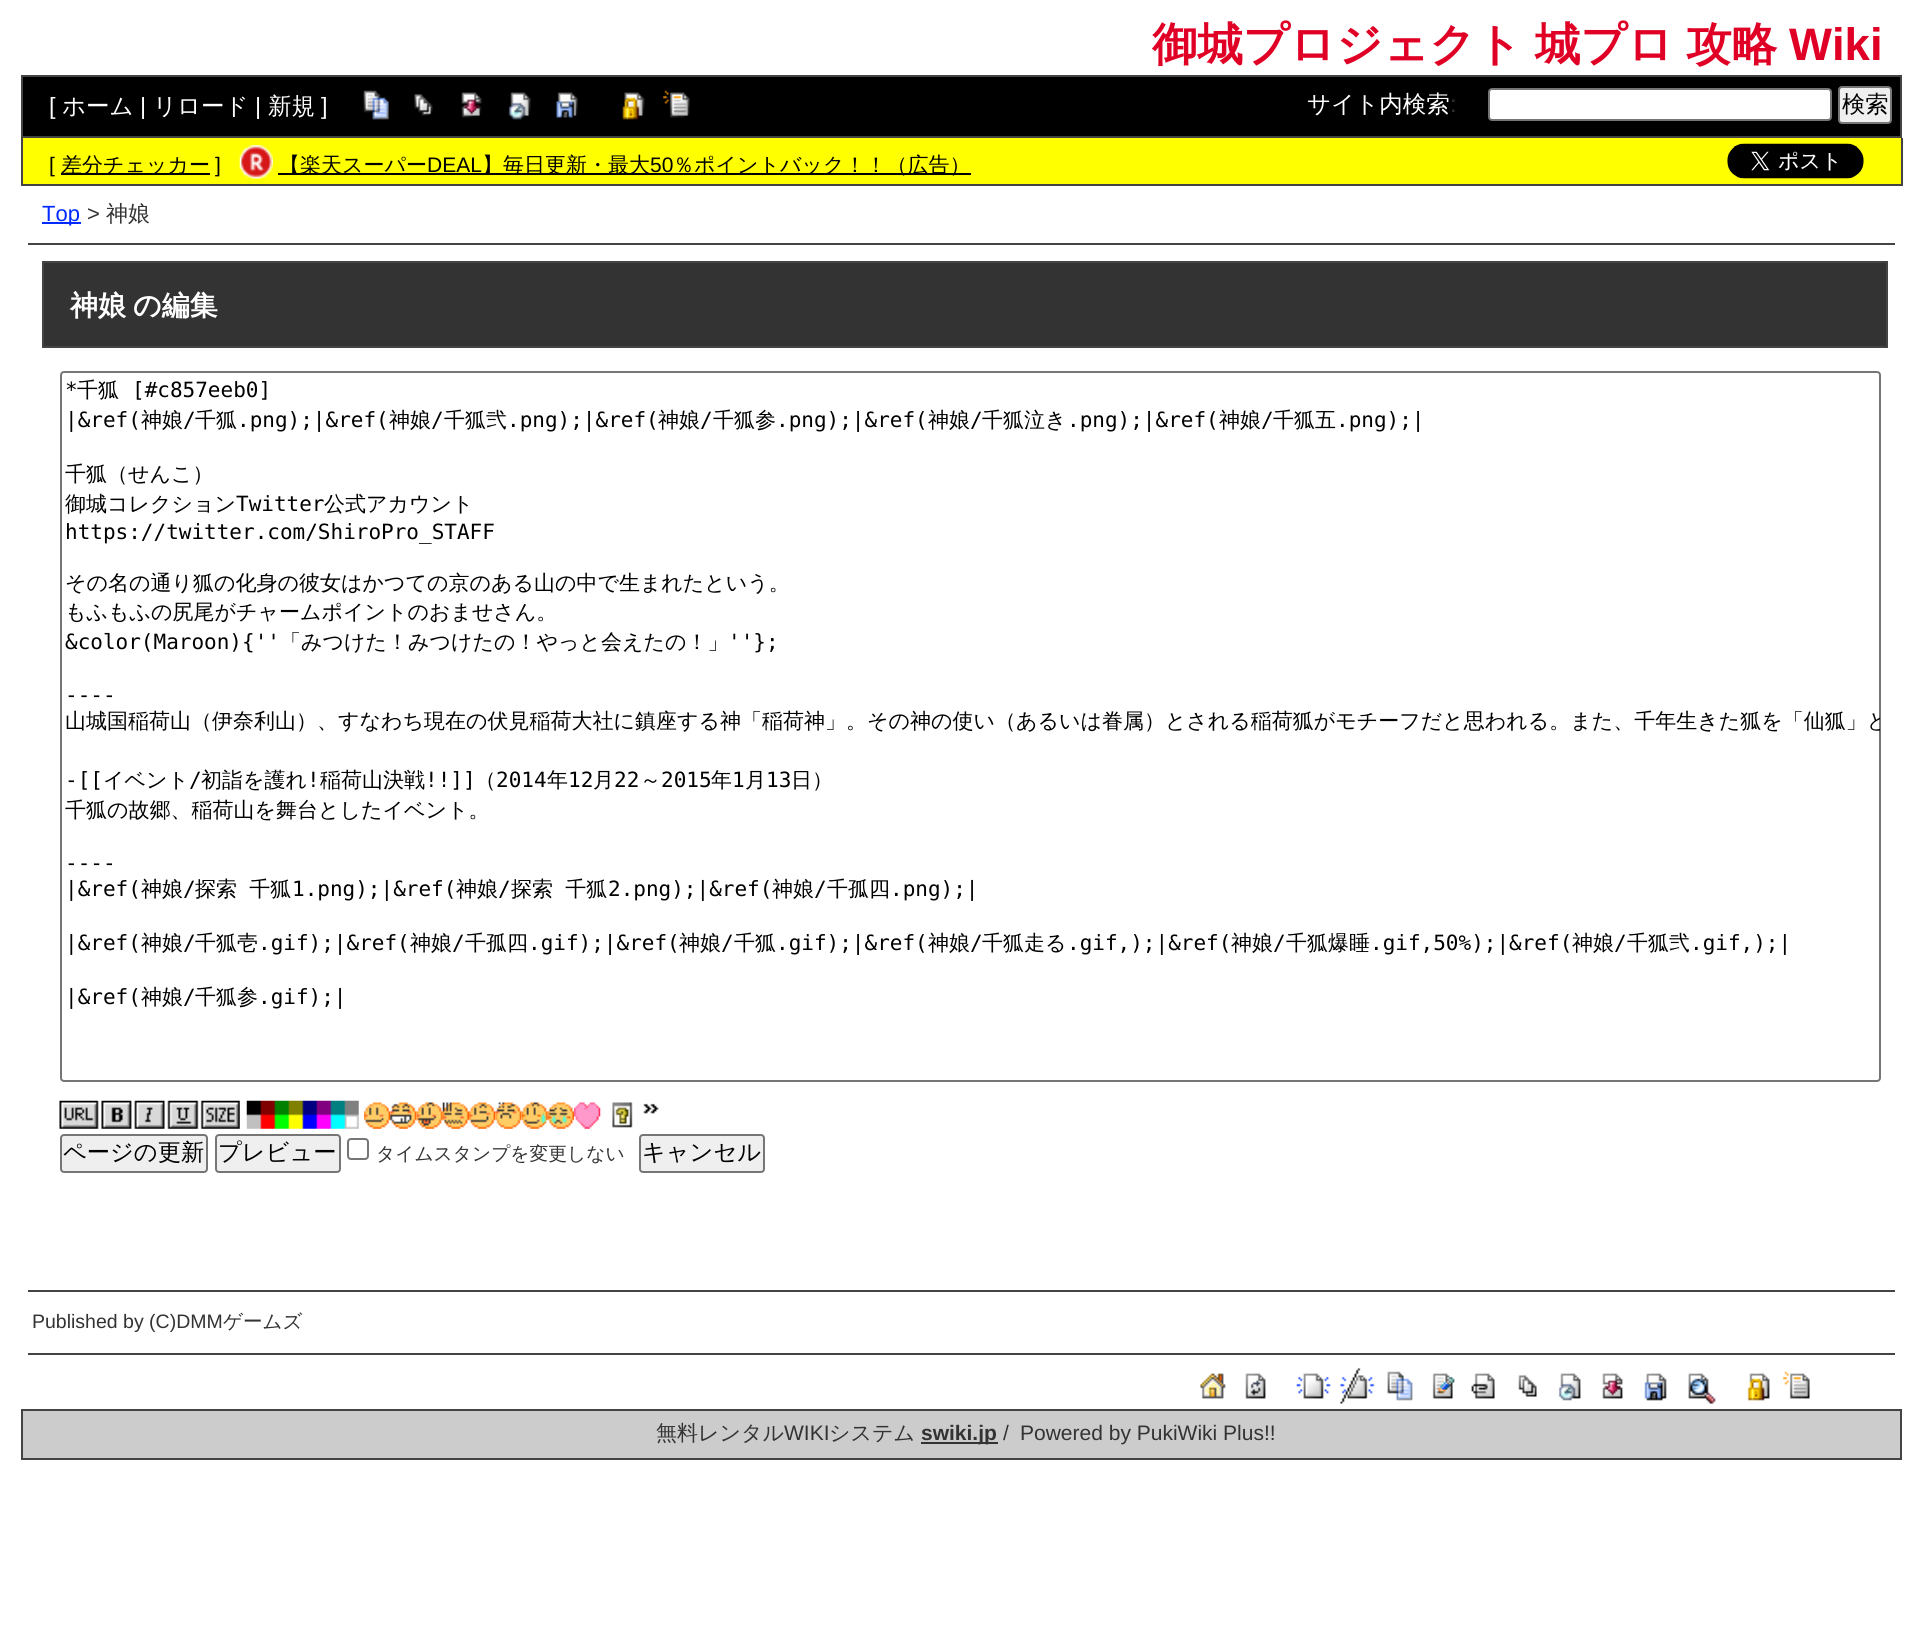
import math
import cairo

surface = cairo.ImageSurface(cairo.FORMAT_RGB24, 1922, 1647)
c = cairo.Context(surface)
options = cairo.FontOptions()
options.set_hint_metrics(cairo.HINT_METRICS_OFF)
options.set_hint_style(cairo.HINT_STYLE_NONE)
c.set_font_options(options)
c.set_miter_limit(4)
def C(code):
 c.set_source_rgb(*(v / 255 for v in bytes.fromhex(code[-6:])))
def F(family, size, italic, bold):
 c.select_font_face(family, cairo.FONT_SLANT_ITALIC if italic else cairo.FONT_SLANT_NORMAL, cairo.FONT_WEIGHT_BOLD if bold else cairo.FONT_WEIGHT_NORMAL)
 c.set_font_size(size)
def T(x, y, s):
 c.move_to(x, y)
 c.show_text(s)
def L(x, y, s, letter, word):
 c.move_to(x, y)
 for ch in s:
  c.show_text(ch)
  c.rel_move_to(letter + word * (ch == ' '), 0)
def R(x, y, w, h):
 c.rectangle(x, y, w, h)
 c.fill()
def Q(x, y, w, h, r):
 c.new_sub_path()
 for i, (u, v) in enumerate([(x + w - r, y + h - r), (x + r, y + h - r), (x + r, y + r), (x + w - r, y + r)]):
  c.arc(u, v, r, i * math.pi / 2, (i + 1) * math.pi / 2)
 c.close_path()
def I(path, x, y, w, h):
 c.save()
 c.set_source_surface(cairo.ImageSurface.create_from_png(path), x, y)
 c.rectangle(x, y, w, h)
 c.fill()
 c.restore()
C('ffffff')
c.paint()
F('WenQuanYi Zen Hei',45.5,0,1)
C('e00025')
L(1152,60,'御城プロジェクト 城プロ 攻略',0,-1)
F('Liberation Sans',45.5,0,1)
T(1789,60,'Wiki')
C('000000')
c.rectangle(22,76,1879,61)
c.fill_preserve()
C('444444')
c.stroke()
F('Liberation Sans',23.5,0,0)
C('ffffff')
T(49,114,'[')
F('WenQuanYi Zen Hei Medium',23.5,0,0)
T(62,114,'ホーム')
F('Liberation Sans',23.5,0,0)
T(140,114,'|')
F('WenQuanYi Zen Hei Medium',23.5,0,0)
T(153,114,'リロード')
F('Liberation Sans',23.5,0,0)
T(255,114,'|')
F('WenQuanYi Zen Hei Medium',23.5,0,0)
T(268,114,'新規')
F('Liberation Sans',23.5,0,0)
T(321,114,']')
I('1.png',363,90,26,30)
I('2.png',414,94,19,22)
I('3.png',461,92,21,26)
I('4.png',508,92,23,28)
I('5.png',556,92,22,26)
I('6.png',622,92,23,28)
I('7.png',663,90,27,28)
F('WenQuanYi Zen Hei Medium',23.5,0,0)
T(1307,112,'サイト内検索')
F('Liberation Sans',23.5,0,0)
C('333333')
T(1450,112,':')
C('ffffff')
Q(1489,89,342,31,3)
c.fill_preserve()
C('767676')
c.stroke()
C('efefef')
Q(1839,87,52,36,3)
c.fill_preserve()
C('767676')
c.stroke()
F('WenQuanYi Zen Hei Medium',23.25,0,0)
C('000000')
T(1842,112,'検索')
C('ffff00')
R(23,138,1878,46)
C('444444')
R(1901,138,2,48)
R(21,184,1881,2)
R(21,138,2,48)
F('Liberation Sans',21,0,0)
C('000000')
T(49,172,'[')
R(61,173,149,2)
F('WenQuanYi Zen Hei Medium',21,0,0)
T(61,172,'差分チェッカー')
F('Liberation Sans',21,0,0)
T(215,172,']')
I('8.png',239,145,34,34)
R(278,173,693,2)
F('WenQuanYi Zen Hei Medium',21,0,0)
T(279,172,'【楽天スーパー')
F('Liberation Sans',21,0,0)
T(427,172,'DEAL')
F('WenQuanYi Zen Hei Medium',21,0,0)
T(482,172,'】毎日更新・最大')
F('Liberation Sans',21,0,0)
T(650,172,'50')
F('WenQuanYi Zen Hei Medium',21,0,0)
T(673,172,'％ポイントバック！！（広告）')
I('9.png',1727,143,137,36)
C('002aff')
R(42,222,39,2)
F('Liberation Sans',22,0,0)
T(42,221,'Top')
C('333333')
T(87,221,'>')
F('WenQuanYi Zen Hei Medium',22,0,0)
T(106,221,'神娘')
C('444444')
R(28,243,1867,2)
C('333333')
c.rectangle(43,262,1844,85)
c.fill_preserve()
C('444444')
c.stroke()
F('WenQuanYi Zen Hei',28,0,1)
C('ffffff')
T(70,315,'神娘')
T(133,315,'の編集')
Q(61,372,1819,709,3)
C('767676')
c.stroke()
F('DejaVu Sans Mono',21,0,0)
C('000000')
T(65,397,'*')
F('WenQuanYi Zen Hei Medium',21,0,0)
T(77,397,'千狐')
F('DejaVu Sans Mono',21,0,0)
T(132,397,'[#c857eeb0]')
T(65,427,'|&ref(')
F('WenQuanYi Zen Hei Medium',21,0,0)
T(141,427,'神娘')
F('DejaVu Sans Mono',21,0,0)
T(183,427,'/')
F('WenQuanYi Zen Hei Medium',21,0,0)
T(195,427,'千狐')
F('DejaVu Sans Mono',21,0,0)
T(237,427,'.png);|&ref(')
F('WenQuanYi Zen Hei Medium',21,0,0)
T(389,427,'神娘')
F('DejaVu Sans Mono',21,0,0)
T(431,427,'/')
F('WenQuanYi Zen Hei Medium',21,0,0)
T(444,427,'千狐弐')
F('DejaVu Sans Mono',21,0,0)
T(507,427,'.png);|&ref(')
F('WenQuanYi Zen Hei Medium',21,0,0)
T(658,427,'神娘')
F('DejaVu Sans Mono',21,0,0)
T(700,427,'/')
F('WenQuanYi Zen Hei Medium',21,0,0)
T(713,427,'千狐参')
F('DejaVu Sans Mono',21,0,0)
T(776,427,'.png);|&ref(')
F('WenQuanYi Zen Hei Medium',21,0,0)
T(928,427,'神娘')
F('DejaVu Sans Mono',21,0,0)
T(970,427,'/')
F('WenQuanYi Zen Hei Medium',21,0,0)
T(982,427,'千狐泣き')
F('DejaVu Sans Mono',21,0,0)
T(1067,427,'.png);|&ref(')
F('WenQuanYi Zen Hei Medium',21,0,0)
T(1219,427,'神娘')
F('DejaVu Sans Mono',21,0,0)
T(1261,427,'/')
F('WenQuanYi Zen Hei Medium',21,0,0)
T(1273,427,'千狐五')
F('DejaVu Sans Mono',21,0,0)
T(1336,427,'.png);|')
F('WenQuanYi Zen Hei Medium',21,0,0)
T(65,481,'千狐（せんこ）')
T(65,511,'御城コレクション')
F('DejaVu Sans Mono',21,0,0)
T(236,511,'Twitter')
F('WenQuanYi Zen Hei Medium',21,0,0)
T(324,511,'公式アカウント')
F('DejaVu Sans Mono',21,0,0)
T(65,539,'https://twitter.com/ShiroPro_STAFF')
F('WenQuanYi Zen Hei Medium',21,0,0)
T(65,590,'その名の通り狐の化身の彼女はかつての京のある山の中で生まれたという。')
T(65,619,'もふもふの尻尾がチャームポイントのおませさん。')
F('DejaVu Sans Mono',21,0,0)
T(65,649,'&color(Maroon){\'\'')
F('WenQuanYi Zen Hei Medium',21,0,0)
T(280,649,'「みつけた！みつけたの！やっと会えたの！」')
F('DejaVu Sans Mono',21,0,0)
T(728,649,'\'\'};')
T(65,702,'----')
c.save()
c.rectangle(61,373,1819,707)
c.clip()
F('WenQuanYi Zen Hei Medium',21,0,0)
T(65,728,'山城国稲荷山（伊奈利山）、すなわち現在の伏見稲荷大社に鎮座する神「稲荷神」。その神の使い（あるいは眷属）とされる稲荷狐がモチーフだと思われる。また、千年生きた狐を「仙狐」と')
c.restore()
T(65,787,'-[[')
F('WenQuanYi Zen Hei Medium',21,0,0)
T(103,787,'イベント')
F('DejaVu Sans Mono',21,0,0)
T(189,787,'/')
F('WenQuanYi Zen Hei Medium',21,0,0)
T(201,787,'初詣を護れ')
F('DejaVu Sans Mono',21,0,0)
T(307,787,'!')
F('WenQuanYi Zen Hei Medium',21,0,0)
T(320,787,'稲荷山決戦')
F('DejaVu Sans Mono',21,0,0)
T(425,787,'!!]]')
F('WenQuanYi Zen Hei Medium',21,0,0)
T(475,787,'（')
F('DejaVu Sans Mono',21,0,0)
T(496,787,'2014')
F('WenQuanYi Zen Hei Medium',21,0,0)
T(547,787,'年')
F('DejaVu Sans Mono',21,0,0)
T(568,787,'12')
F('WenQuanYi Zen Hei Medium',21,0,0)
T(593,787,'月')
F('DejaVu Sans Mono',21,0,0)
T(614,787,'22')
F('WenQuanYi Zen Hei Medium',21,0,0)
T(640,787,'～')
F('DejaVu Sans Mono',21,0,0)
T(661,787,'2015')
F('WenQuanYi Zen Hei Medium',21,0,0)
T(711,787,'年')
F('DejaVu Sans Mono',21,0,0)
T(732,787,'1')
F('WenQuanYi Zen Hei Medium',21,0,0)
T(745,787,'月')
F('DejaVu Sans Mono',21,0,0)
T(766,787,'13')
F('WenQuanYi Zen Hei Medium',21,0,0)
T(791,787,'日）')
T(65,817,'千狐の故郷、稲荷山を舞台としたイベント。')
F('DejaVu Sans Mono',21,0,0)
T(65,870,'----')
T(65,896,'|&ref(')
F('WenQuanYi Zen Hei Medium',21,0,0)
T(141,896,'神娘')
F('DejaVu Sans Mono',21,0,0)
T(183,896,'/')
F('WenQuanYi Zen Hei Medium',21,0,0)
L(195,896,'探索 千狐',0,6)
F('DejaVu Sans Mono',21,0,0)
T(292,896,'1.png);|&ref(')
F('WenQuanYi Zen Hei Medium',21,0,0)
T(456,896,'神娘')
F('DejaVu Sans Mono',21,0,0)
T(498,896,'/')
F('WenQuanYi Zen Hei Medium',21,0,0)
L(511,896,'探索 千狐',0,6)
F('DejaVu Sans Mono',21,0,0)
T(608,896,'2.png);|&ref(')
F('WenQuanYi Zen Hei Medium',21,0,0)
T(772,896,'神娘')
F('DejaVu Sans Mono',21,0,0)
T(814,896,'/')
F('WenQuanYi Zen Hei Medium',21,0,0)
T(827,896,'千孤四')
F('DejaVu Sans Mono',21,0,0)
T(890,896,'.png);|')
T(65,950,'|&ref(')
F('WenQuanYi Zen Hei Medium',21,0,0)
T(141,950,'神娘')
F('DejaVu Sans Mono',21,0,0)
T(183,950,'/')
F('WenQuanYi Zen Hei Medium',21,0,0)
T(195,950,'千狐壱')
F('DejaVu Sans Mono',21,0,0)
T(258,950,'.gif);|&ref(')
F('WenQuanYi Zen Hei Medium',21,0,0)
T(410,950,'神娘')
F('DejaVu Sans Mono',21,0,0)
T(452,950,'/')
F('WenQuanYi Zen Hei Medium',21,0,0)
T(465,950,'千孤四')
F('DejaVu Sans Mono',21,0,0)
T(528,950,'.gif);|&ref(')
F('WenQuanYi Zen Hei Medium',21,0,0)
T(679,950,'神娘')
F('DejaVu Sans Mono',21,0,0)
T(721,950,'/')
F('WenQuanYi Zen Hei Medium',21,0,0)
T(734,950,'千狐')
F('DejaVu Sans Mono',21,0,0)
T(776,950,'.gif);|&ref(')
F('WenQuanYi Zen Hei Medium',21,0,0)
T(928,950,'神娘')
F('DejaVu Sans Mono',21,0,0)
T(970,950,'/')
F('WenQuanYi Zen Hei Medium',21,0,0)
T(982,950,'千狐走る')
F('DejaVu Sans Mono',21,0,0)
T(1067,950,'.gif,);|&ref(')
F('WenQuanYi Zen Hei Medium',21,0,0)
T(1231,950,'神娘')
F('DejaVu Sans Mono',21,0,0)
T(1273,950,'/')
F('WenQuanYi Zen Hei Medium',21,0,0)
T(1286,950,'千狐爆睡')
F('DejaVu Sans Mono',21,0,0)
T(1370,950,'.gif,50%);|&ref(')
F('WenQuanYi Zen Hei Medium',21,0,0)
T(1572,950,'神娘')
F('DejaVu Sans Mono',21,0,0)
T(1614,950,'/')
F('WenQuanYi Zen Hei Medium',21,0,0)
T(1627,950,'千狐弐')
F('DejaVu Sans Mono',21,0,0)
T(1690,950,'.gif,);|')
T(65,1004,'|&ref(')
F('WenQuanYi Zen Hei Medium',21,0,0)
T(141,1004,'神娘')
F('DejaVu Sans Mono',21,0,0)
T(183,1004,'/')
F('WenQuanYi Zen Hei Medium',21,0,0)
T(195,1004,'千狐参')
F('DejaVu Sans Mono',21,0,0)
T(258,1004,'.gif);|')
I('10.png',59,1100,181,29)
I('11.png',246,1100,113,29)
I('12.png',364,1102,27,27)
I('13.png',390,1102,27,27)
I('14.png',416,1102,27,27)
I('15.png',442,1102,27,27)
I('16.png',469,1102,27,27)
I('17.png',495,1102,27,27)
I('18.png',521,1102,27,27)
I('19.png',547,1102,27,27)
I('20.png',574,1102,27,27)
I('21.png',612,1102,21,26)
I('22.png',643,1103,16,11)
C('efefef')
Q(61,1135,146,37,3)
c.fill_preserve()
C('767676')
c.stroke()
F('WenQuanYi Zen Hei Medium',23.25,0,0)
C('000000')
T(63,1160,'ページの更新')
C('efefef')
Q(216,1135,124,37,3)
c.fill_preserve()
C('767676')
c.stroke()
C('000000')
T(218,1160,'プレビュー')
Q(348,1139,20,20,3)
C('767676')
c.stroke()
F('WenQuanYi Zen Hei Medium',18.75,0,0)
C('333333')
T(376,1160,'タイムスタンプを変更しない')
C('efefef')
Q(640,1135,124,37,3)
c.fill_preserve()
C('767676')
c.stroke()
F('WenQuanYi Zen Hei Medium',23.25,0,0)
C('000000')
T(642,1160,'キャンセル')
C('444444')
R(28,1290,1867,2)
F('Liberation Sans',19.5,0,0)
C('333333')
T(32,1328,'Published by (C)DMM')
F('WenQuanYi Zen Hei Medium',19.5,0,0)
T(223,1328,'ゲームズ')
C('444444')
R(28,1353,1867,2)
I('23.png',1200,1373,26,26)
I('24.png',1245,1373,21,26)
I('25.png',1296,1373,35,26)
I('26.png',1340,1368,35,36)
I('27.png',1387,1371,26,30)
I('28.png',1432,1373,23,26)
I('29.png',1471,1373,24,26)
I('30.png',1518,1375,19,22)
I('31.png',1558,1373,23,28)
I('32.png',1602,1373,21,26)
I('33.png',1644,1373,23,28)
I('34.png',1688,1373,28,31)
I('35.png',1747,1373,23,28)
I('36.png',1783,1371,27,28)
C('cccccc')
c.rectangle(22,1410,1879,49)
c.fill_preserve()
C('444444')
c.stroke()
F('WenQuanYi Zen Hei Medium',21,0,0)
C('333333')
T(656,1440,'無料レンタル')
F('Liberation Sans',21,0,0)
T(784,1440,'WIKI')
F('WenQuanYi Zen Hei Medium',21,0,0)
T(829,1440,'システム')
R(921,1442,77,2)
F('Liberation Sans',21,0,1)
T(921,1440,'swiki.jp')
F('Liberation Sans',21,0,0)
T(1003,1440,'/')
T(1020,1440,'Powered by PukiWiki Plus!!')
surface.write_to_png('o.png')
